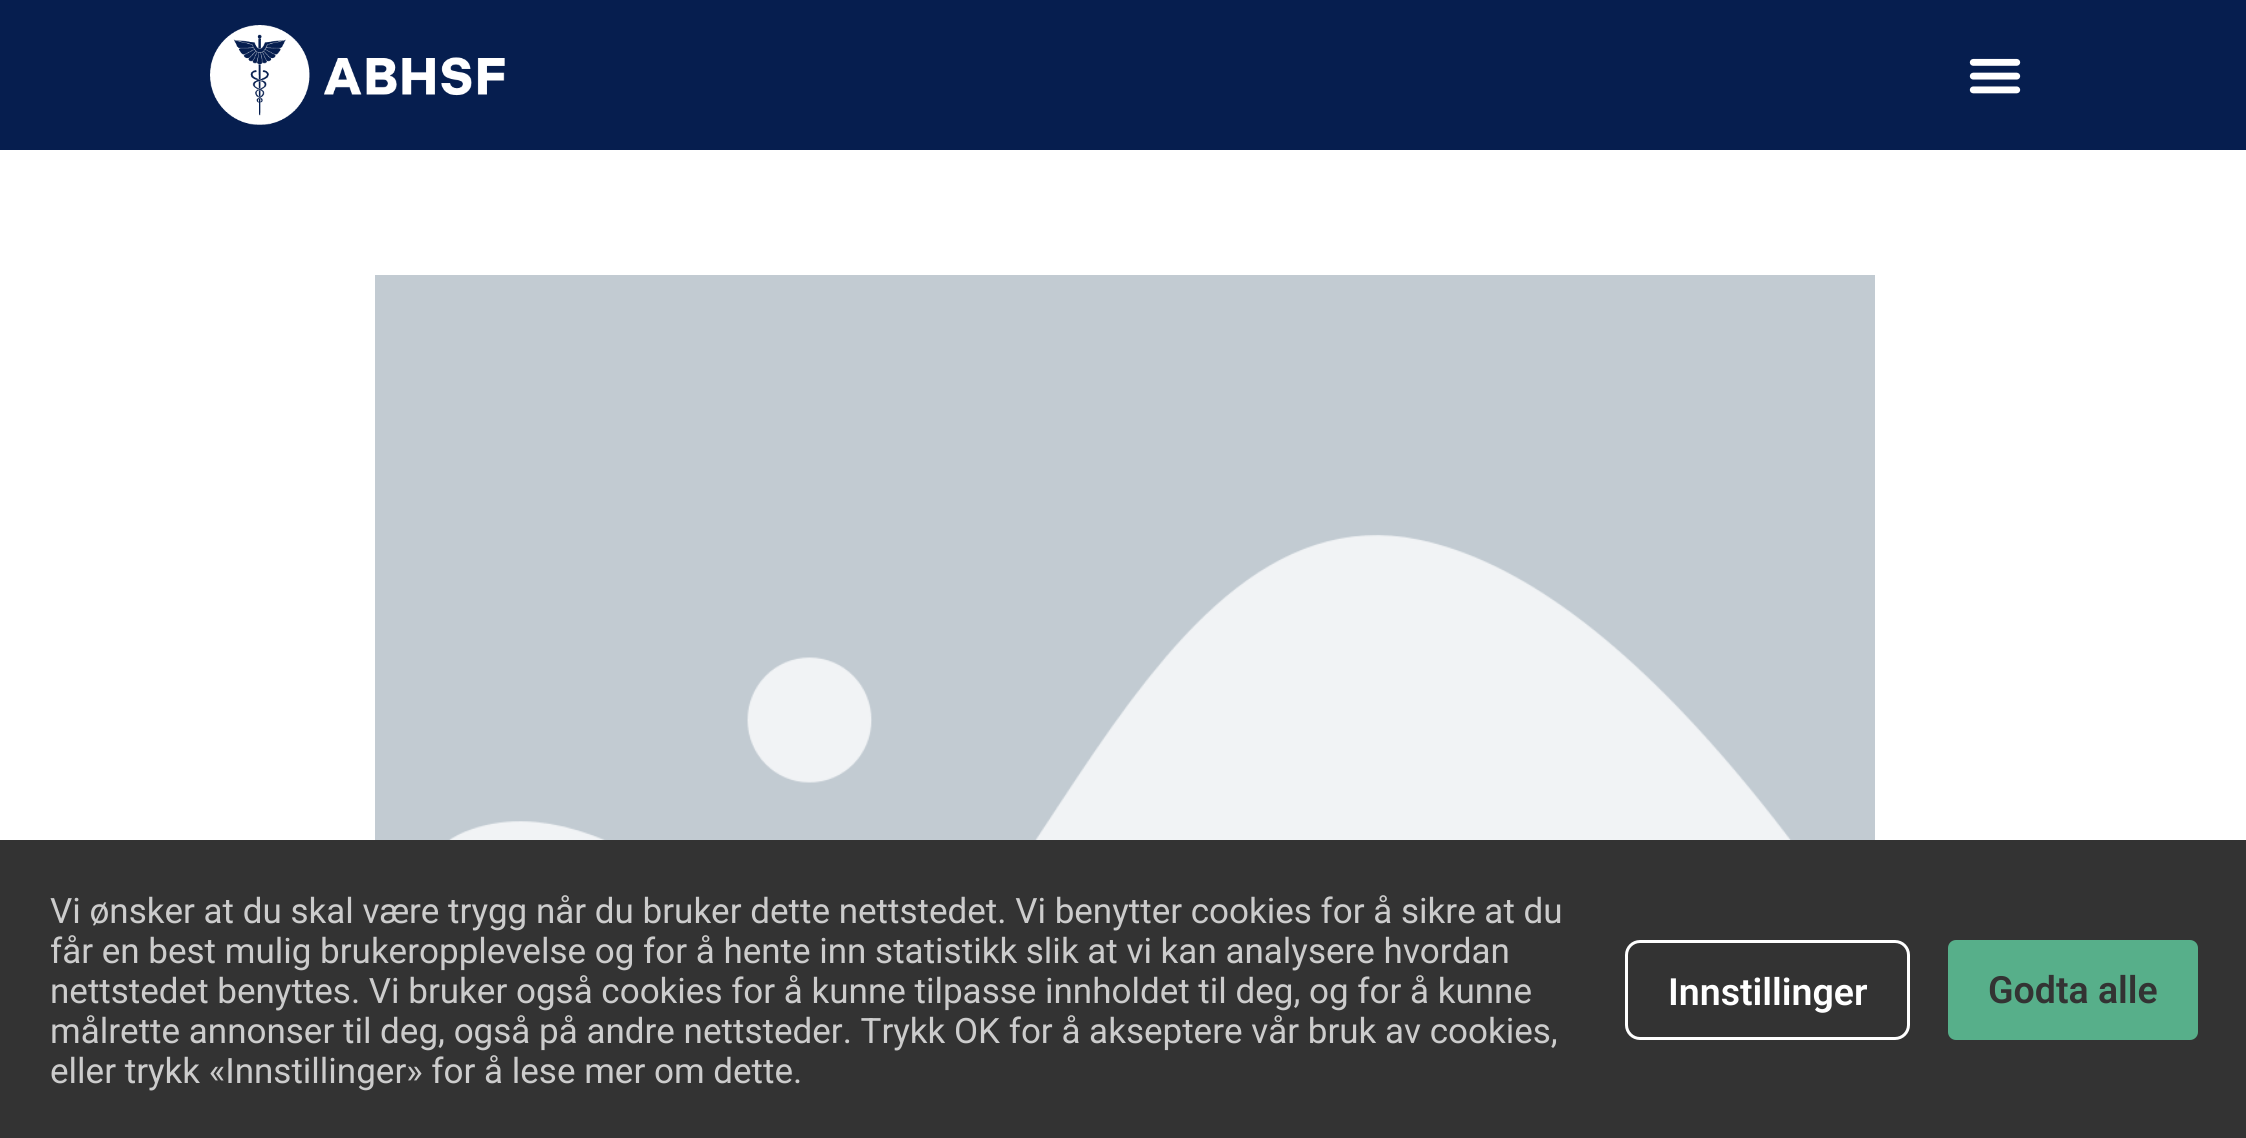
import math
import cairo

surface = cairo.ImageSurface(cairo.FORMAT_RGB24, 2246, 1138)
c = cairo.Context(surface)
options = cairo.FontOptions()
options.set_hint_metrics(cairo.HINT_METRICS_OFF)
options.set_hint_style(cairo.HINT_STYLE_NONE)
c.set_font_options(options)
c.set_miter_limit(4)
def C(code):
 c.set_source_rgb(*(v / 255 for v in bytes.fromhex(code[-6:])))
def F(family, size, italic, bold):
 c.select_font_face(family, cairo.FONT_SLANT_ITALIC if italic else cairo.FONT_SLANT_NORMAL, cairo.FONT_WEIGHT_BOLD if bold else cairo.FONT_WEIGHT_NORMAL)
 c.set_font_size(size)
def T(x, y, s):
 c.move_to(x, y)
 c.show_text(s)
def R(x, y, w, h):
 c.rectangle(x, y, w, h)
 c.fill()
def Q(x, y, w, h, r):
 c.new_sub_path()
 for i, (u, v) in enumerate([(x + w - r, y + h - r), (x + r, y + h - r), (x + r, y + r), (x + w - r, y + r)]):
  c.arc(u, v, r, i * math.pi / 2, (i + 1) * math.pi / 2)
 c.close_path()
def I(path, x, y, w, h):
 c.save()
 c.set_source_surface(cairo.ImageSurface.create_from_png(path), x, y)
 c.rectangle(x, y, w, h)
 c.fill()
 c.restore()
C('ffffff')
c.paint()
C('061e4f')
R(0,0,2246,150)
I('1.png',210,25,295,100)
I('2.png',1969,58,52,36)
I('3.png',375,275,1500,565)
C('333333')
R(0,840,2246,298)
F('Roboto',35,0,0)
C('cccccc')
T(50,923,'Vi ønsker at du skal være trygg når du bruker dette nettstedet. Vi benytter cookies for å sikre at du')
T(50,963,'får en best mulig brukeropplevelse og for å hente inn statistikk slik at vi kan analysere hvordan')
T(50,1003,'nettstedet benyttes. Vi bruker også cookies for å kunne tilpasse innholdet til deg, og for å kunne')
T(50,1043,'målrette annonser til deg, også på andre nettsteder. Trykk OK for å akseptere vår bruk av cookies,')
T(50,1083,'eller trykk «Innstillinger» for å lese mer om dette.')
Q(1626.5,941.5,282,97,13.5)
C('ffffff')
c.set_line_width(3)
c.stroke()
F('Roboto SemiBold',37.5,0,0)
T(1668,1005,'Innstillinger')
C('57af8a')
Q(1948,940,250,100,8)
c.fill()
C('333333')
T(1988,1003,'Godta alle')
surface.write_to_png('o.png')
